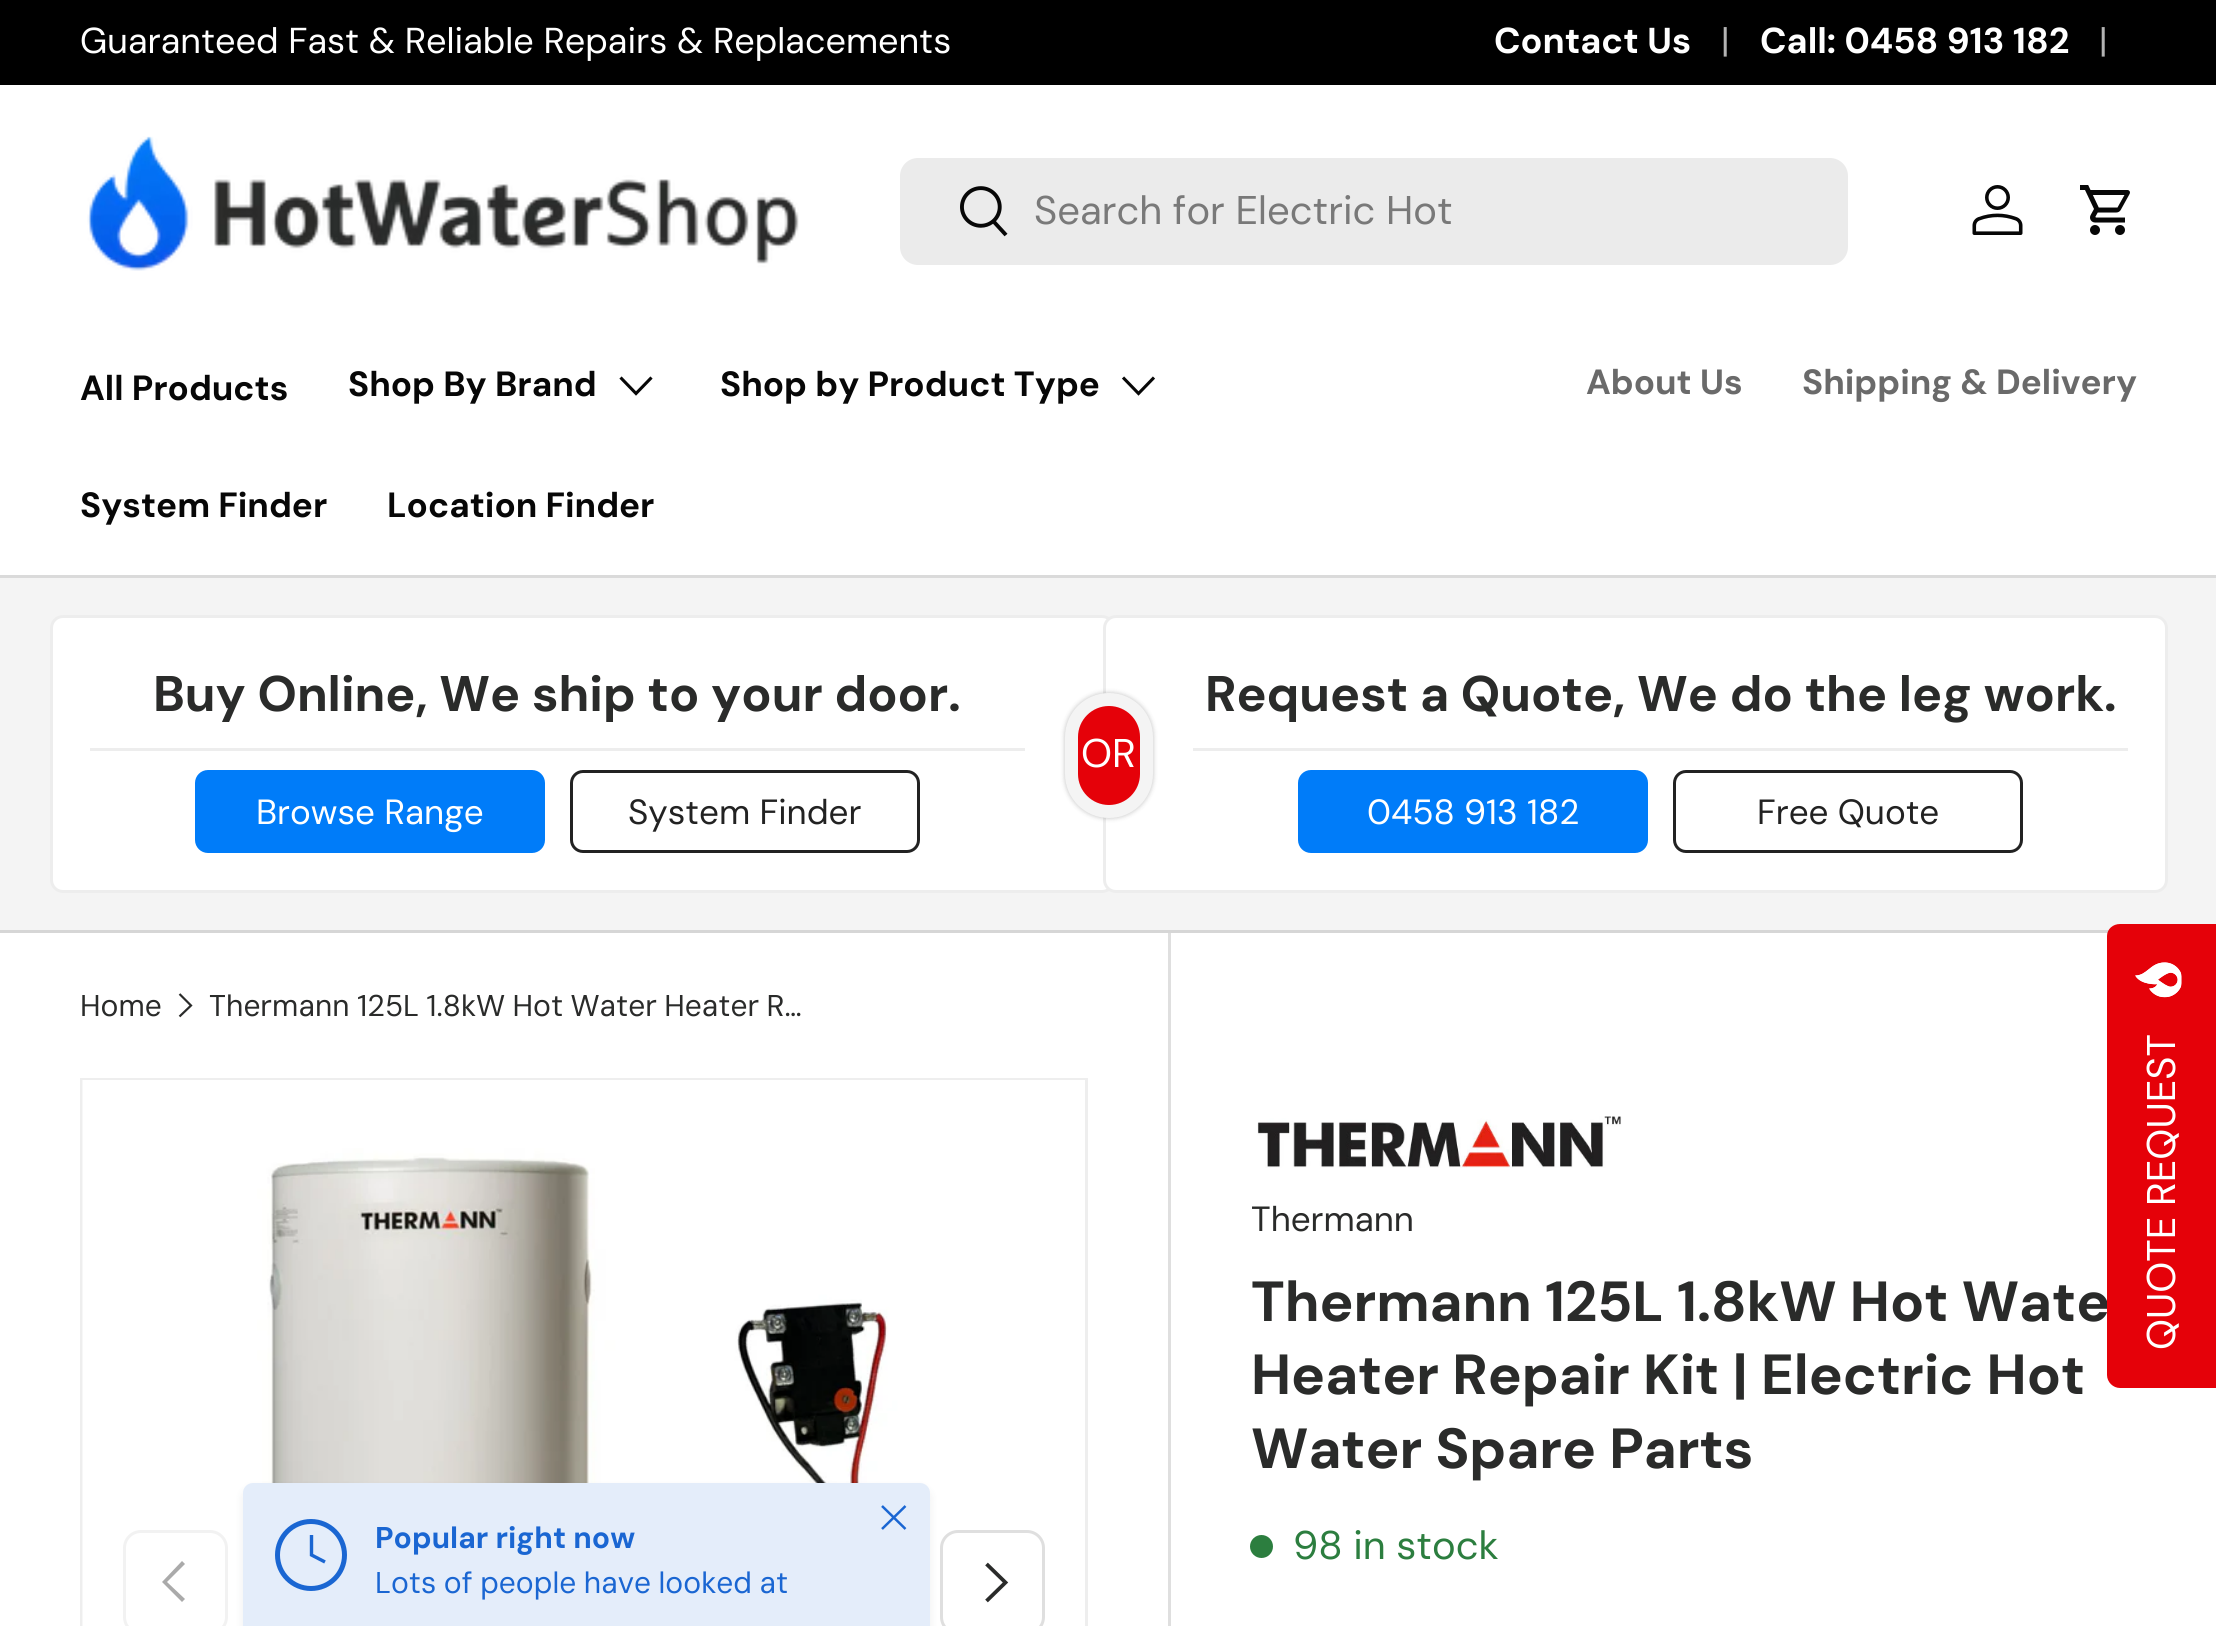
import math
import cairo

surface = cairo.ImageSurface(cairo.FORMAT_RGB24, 2216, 1626)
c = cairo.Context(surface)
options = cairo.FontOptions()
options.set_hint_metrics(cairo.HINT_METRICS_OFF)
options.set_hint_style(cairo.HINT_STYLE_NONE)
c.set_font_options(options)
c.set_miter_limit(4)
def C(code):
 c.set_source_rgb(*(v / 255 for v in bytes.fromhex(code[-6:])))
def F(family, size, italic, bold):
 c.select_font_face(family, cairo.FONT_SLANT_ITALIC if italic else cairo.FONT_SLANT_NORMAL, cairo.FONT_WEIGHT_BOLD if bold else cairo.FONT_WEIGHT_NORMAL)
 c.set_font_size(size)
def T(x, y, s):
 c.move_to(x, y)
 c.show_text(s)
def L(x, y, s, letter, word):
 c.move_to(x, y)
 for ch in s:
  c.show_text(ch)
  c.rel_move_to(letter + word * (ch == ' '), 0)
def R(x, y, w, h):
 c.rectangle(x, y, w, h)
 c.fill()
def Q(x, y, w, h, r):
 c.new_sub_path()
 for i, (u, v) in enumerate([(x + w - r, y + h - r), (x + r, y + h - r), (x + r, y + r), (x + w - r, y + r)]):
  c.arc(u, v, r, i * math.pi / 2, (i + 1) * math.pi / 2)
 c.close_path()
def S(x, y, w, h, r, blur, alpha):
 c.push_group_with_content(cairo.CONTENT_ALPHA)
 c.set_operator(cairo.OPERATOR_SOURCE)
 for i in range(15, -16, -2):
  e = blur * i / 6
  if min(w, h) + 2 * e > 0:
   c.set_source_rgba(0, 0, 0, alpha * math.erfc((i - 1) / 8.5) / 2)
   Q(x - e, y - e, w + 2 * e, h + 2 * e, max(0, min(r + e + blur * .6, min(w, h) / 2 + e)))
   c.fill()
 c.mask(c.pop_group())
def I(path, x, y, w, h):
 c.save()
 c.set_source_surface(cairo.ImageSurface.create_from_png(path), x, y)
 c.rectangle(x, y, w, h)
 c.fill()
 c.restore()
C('ffffff')
c.paint()
C('000000')
R(0,0,2216,85)
F('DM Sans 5',36,0,0)
C('ffffff')
T(80,53,'Guaranteed Fast & Reliable Repairs & Replacements')
F('DM Sans 5',36,0,1)
T(1494,53,'Contact Us')
F('DM Sans 5',36,0,0)
C('b3b3b3')
T(1721,53,'|')
F('DM Sans 5',36,0,1)
C('ffffff')
T(1760,53,'Call: 0458 913 182')
F('DM Sans 5',36,0,0)
C('b3b3b3')
T(2099,53,'|')
C('dadada')
R(0,575,2216,3)
I('1.png',87,136,712,135)
C('ebebeb')
Q(900,158,948,107,18)
c.fill()
I('2.png',960,186,48,51)
F('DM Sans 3',40,0,0)
C('797979')
T(1034,224,'Search for Electric Hot')
I('3.png',1972,185,51,50)
I('4.png',2080,185,50,50)
F('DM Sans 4',35,0,1)
C('070707')
T(80,400,'All Products')
T(348,396,'Shop By Brand')
c.new_path()
c.move_to(651.5,377.5)
c.line_to(636,393.5)
c.line_to(620.5,377.5)
c.set_line_width(3.1)
c.stroke()
T(720,396,'Shop by Product Type')
c.new_path()
c.move_to(1154,377.5)
c.line_to(1138.5,393.5)
c.line_to(1123,377.5)
c.stroke()
T(80,517,'System Finder')
T(387,517,'Location Finder')
C('6a6a6a')
T(1586,394,'About Us')
T(1802,394,'Shipping & Delivery')
C('f4f4f4')
R(0,578,2216,352)
C('d6d6d6')
R(0,930,2109,3)
C('ffffff')
Q(51.5,616.5,1062,275,11.5)
c.fill_preserve()
C('ededed')
c.set_line_width(3)
c.stroke()
R(90,748,935,3)
F('DM Sans 3',50,0,1)
C('2a2b2a')
T(153,711,'Buy Online, We ship to your door.')
C('007cf9')
Q(196.5,771.5,347,80,11.5)
c.fill_preserve()
c.stroke()
F('DM Sans 4',35,0,0)
C('ffffff')
T(256,824,'Browse Range')
Q(571.5,771.5,347,80,11.5)
C('222222')
c.stroke()
T(628,824,'System Finder')
C('ffffff')
Q(1104.5,616.5,1062,275,11.5)
c.fill_preserve()
C('ededed')
c.stroke()
C('000000')
S(1065,693,88,125,44,2.5,.25)
C('e50109')
Q(1071.5,699.5,75,112,37.5)
c.fill_preserve()
C('f4f4f4')
c.set_line_width(13)
c.stroke()
F('DM Sans 3',40,0,0)
C('ffffff')
T(1081,767,'OR')
C('ededed')
R(1193,748,935,3)
F('DM Sans 3',50,0,1)
C('2a2b2a')
T(1205,711,'Request a Quote, We do the leg work.')
C('007cf9')
Q(1299.5,771.5,347,80,11.5)
c.fill_preserve()
c.set_line_width(3)
c.stroke()
F('DM Sans 4',35,0,0)
C('ffffff')
T(1367,824,'0458 913 182')
Q(1674.5,771.5,347,80,11.5)
C('222222')
c.stroke()
T(1757,824,'Free Quote')
F('DM Sans',30,0,0)
C('2a2b2a')
T(80,1016,'Home')
c.new_path()
c.move_to(179.5,994)
c.line_to(191,1005.5)
c.line_to(179.5,1016.5)
c.set_line_width(2.2)
c.stroke()
L(209,1016,'Thermann 125L 1.8kW Hot Water Heater R…',0,-.75)
c.rectangle(81.5,1079.5,1005,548)
C('eeeeee')
c.set_line_width(3)
c.stroke()
I('5.png',82,1080,1003,546)
Q(124.5,1531.5,102,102,16.5)
C('f2f2f2')
c.stroke()
Q(941.5,1531.5,102,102,16.5)
C('dfdfdf')
c.stroke()
C('212b36')
S(243,1488,687,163,10,5,.08)
C('e4edfa')
Q(243,1483,687,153,10)
c.fill()
c.arc(311,1555,33.5,0,2 * math.pi)
C('1a66d2')
c.set_line_width(5)
c.stroke()
c.new_path()
c.move_to(311.5,1535)
c.line_to(311.5,1555)
c.line_to(325,1562)
c.set_line_width(3.4)
c.stroke()
F('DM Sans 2',30,0,1)
T(375,1548,'Popular right now')
F('DM Sans',30,0,0)
L(375,1593,'Lots of people have looked at',0,-.5)
c.new_path()
c.move_to(882,1529)
c.line_to(905.5,1506)
c.move_to(882,1506)
c.line_to(905.5,1529)
c.set_line_width(2.5)
c.set_line_join(cairo.LINE_JOIN_ROUND)
c.stroke()
C('aaaaaa')
c.new_path()
c.move_to(162,1582)
c.line_to(182,1561)
c.line_to(185,1564)
c.line_to(167,1582)
c.line_to(185,1599)
c.line_to(182,1602)
c.close_path()
c.fill()
c.new_path()
c.move_to(986.5,1564)
c.line_to(1005.5,1582.5)
c.line_to(986.5,1601)
C('2a2b2a')
c.set_line_width(3.8)
c.set_line_join(cairo.LINE_JOIN_MITER)
c.stroke()
C('dfdfdf')
R(1168,933,3,693)
I('6.png',1257,1116,365,52)
F('DM Sans 2',35,0,0)
C('2a2b2a')
T(1251,1231,'Thermann')
F('DM Sans',56.5,0,1)
T(1251,1321,'Thermann 125L 1.8kW Hot Wate')
T(1251,1394,'Heater Repair Kit | Electric Hot')
T(1251,1468,'Water Spare Parts')
C('2c7e3f')
c.new_path()
c.arc(1261.5,1546.5,11.5,0,2 * math.pi)
c.fill()
F('DM Sans 3',40,0,0)
T(1293,1559,'98 in stock')
C('e50109')
c.new_path()
c.move_to(2107,1375)
c.line_to(2107,936)
c.curve_to(2107,929,2113,924,2120,924)
c.line_to(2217,924)
c.line_to(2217,1388)
c.line_to(2120,1388)
c.curve_to(2113,1388,2107,1382,2107,1375)
c.close_path()
c.fill()
I('7.png',2135,962,47,36)
C('ffffff')
c.save()
c.translate(2175,1350)
c.rotate(-90 * math.pi / 180)
T(0,0,'QUOTE REQUEST')
c.restore()
surface.write_to_png('o.png')
